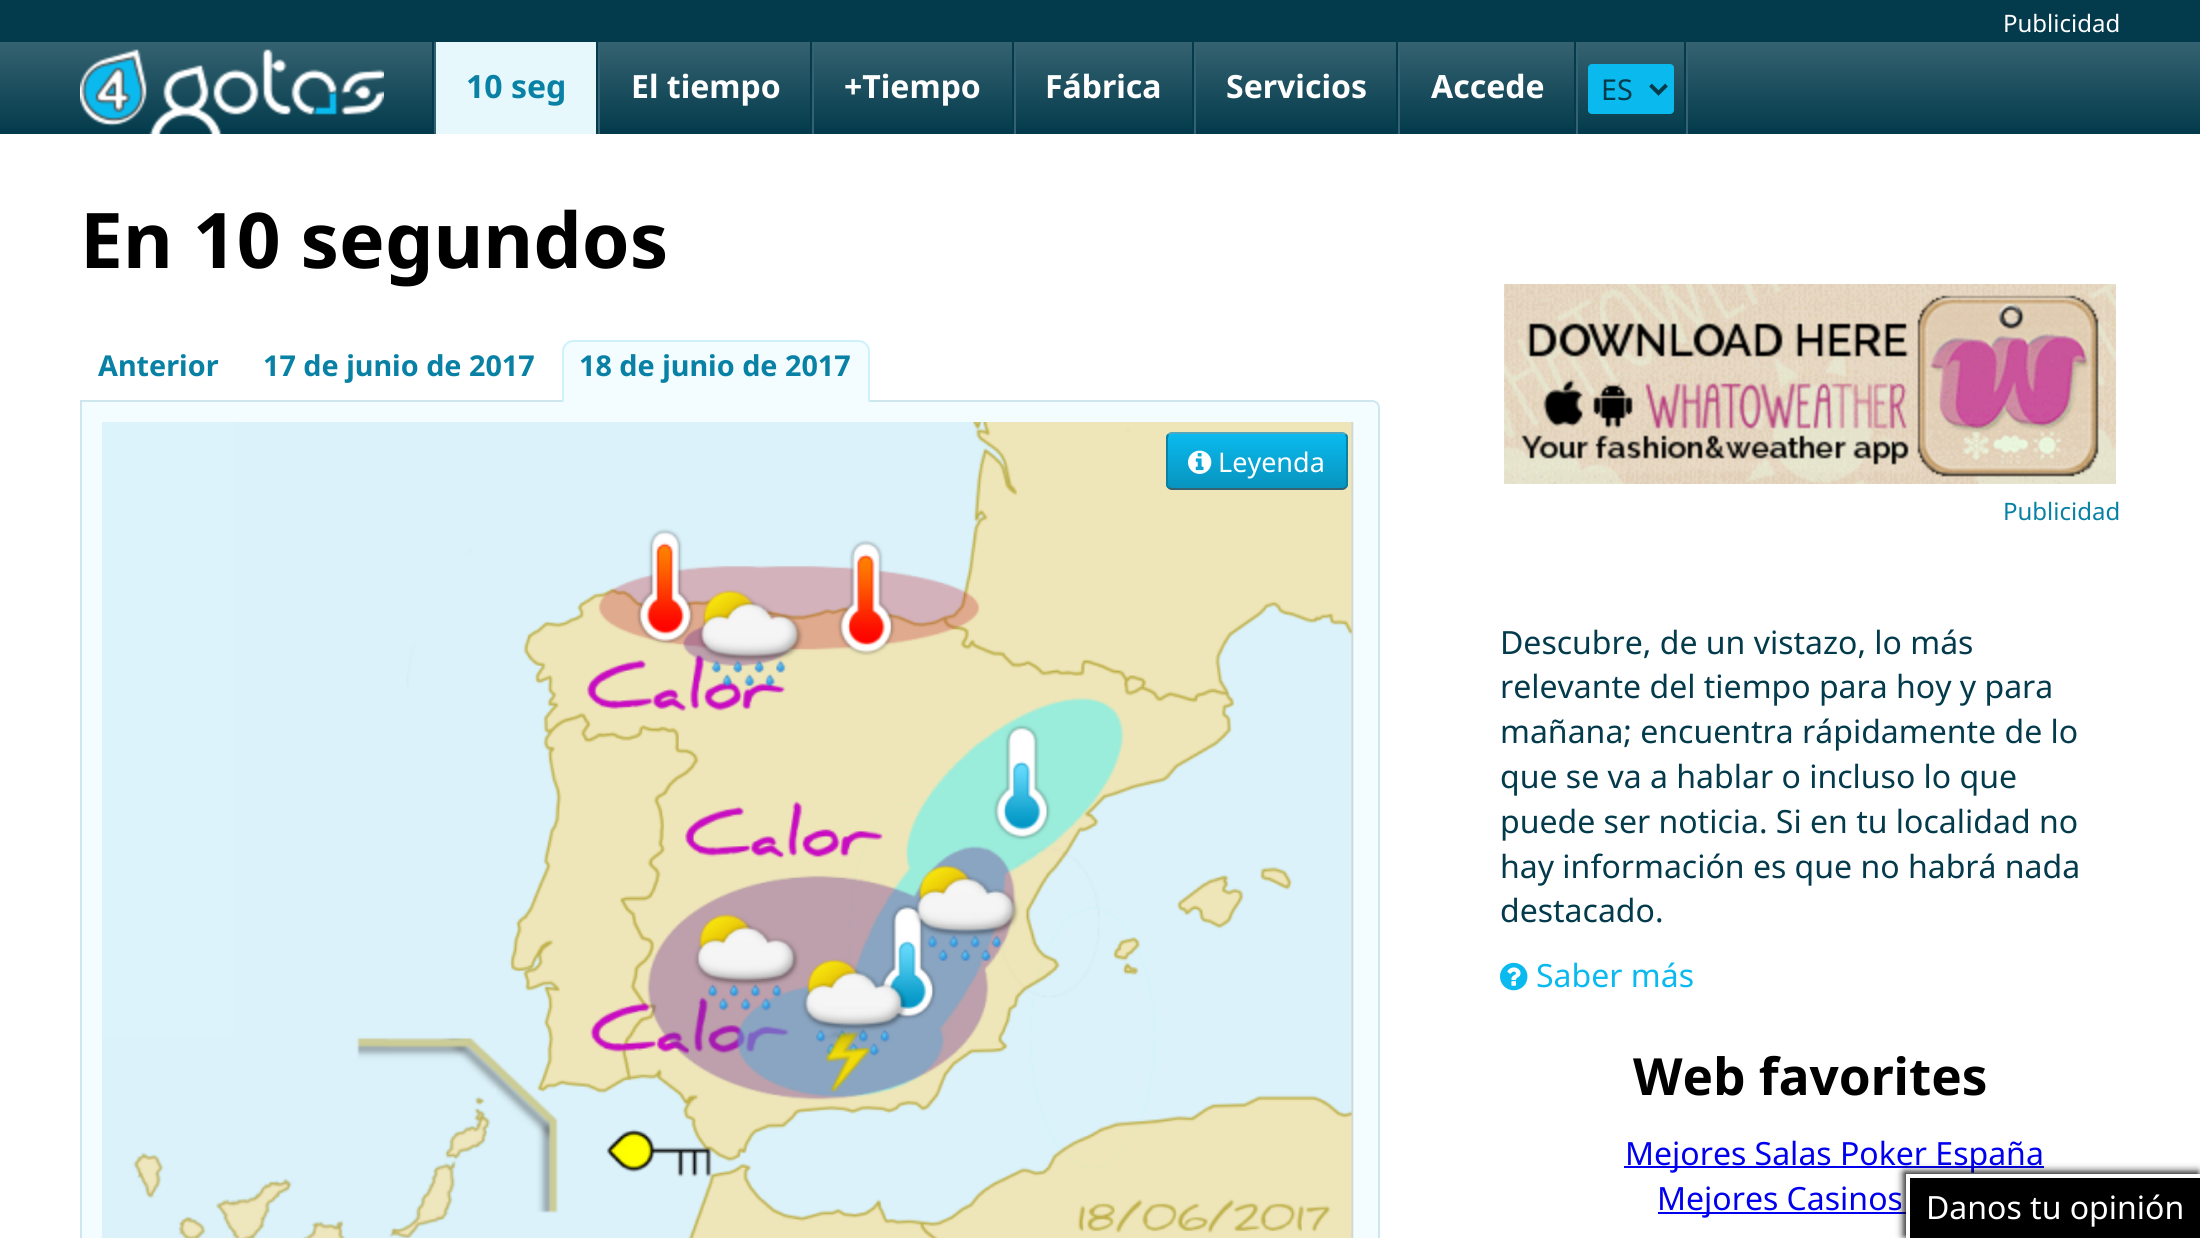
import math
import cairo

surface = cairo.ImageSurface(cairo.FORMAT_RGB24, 2200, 1238)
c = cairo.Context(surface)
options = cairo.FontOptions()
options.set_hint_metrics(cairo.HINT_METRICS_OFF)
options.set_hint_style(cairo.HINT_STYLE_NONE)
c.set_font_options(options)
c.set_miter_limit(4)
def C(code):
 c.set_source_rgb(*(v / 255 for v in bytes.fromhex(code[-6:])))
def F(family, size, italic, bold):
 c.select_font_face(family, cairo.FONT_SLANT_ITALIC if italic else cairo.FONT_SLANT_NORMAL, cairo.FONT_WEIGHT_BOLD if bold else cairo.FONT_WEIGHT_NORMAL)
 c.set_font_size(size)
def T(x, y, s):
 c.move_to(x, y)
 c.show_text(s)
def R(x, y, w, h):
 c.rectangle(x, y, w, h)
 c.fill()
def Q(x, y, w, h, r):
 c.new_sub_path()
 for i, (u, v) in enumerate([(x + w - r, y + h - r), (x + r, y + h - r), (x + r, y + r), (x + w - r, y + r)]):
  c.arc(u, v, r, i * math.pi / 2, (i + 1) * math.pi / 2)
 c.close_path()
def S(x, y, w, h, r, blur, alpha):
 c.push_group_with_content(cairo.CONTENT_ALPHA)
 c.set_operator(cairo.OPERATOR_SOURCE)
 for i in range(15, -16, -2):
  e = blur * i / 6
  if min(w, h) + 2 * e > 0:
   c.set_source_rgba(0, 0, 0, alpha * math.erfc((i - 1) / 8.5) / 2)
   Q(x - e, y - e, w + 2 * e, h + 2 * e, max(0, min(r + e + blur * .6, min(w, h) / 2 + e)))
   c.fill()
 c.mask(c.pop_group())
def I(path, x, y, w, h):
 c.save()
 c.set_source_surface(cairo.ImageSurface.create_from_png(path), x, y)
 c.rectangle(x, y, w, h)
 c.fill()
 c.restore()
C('033b4c')
c.paint()
F('Noto Sans',24,0,0)
C('ffffff')
T(2003,32,'Publicidad')
gradient = cairo.LinearGradient(1100,42,1100,134)
gradient.add_color_stop_rgba(0,0.208,0.384,0.439,1)
gradient.add_color_stop_rgba(1,0.012,0.231,0.298,1)
c.set_source(gradient)
R(0,42,2200,87)
I('1.png',80,49,304,85)
C('356270')
R(1686,42,2,92)
C('033b4c')
R(432,42,2,92)
R(596,42,2,92)
C('356270')
R(434,42,2,92)
C('e7f8fd')
R(436,42,160,92)
F('Noto Sans',32,0,1)
C('0881a5')
T(466,98,'10 seg')
C('033b4c')
R(810,42,2,92)
C('356270')
R(598,42,2,92)
C('ffffff')
T(631,98,'El tiempo')
C('033b4c')
R(1012,42,2,92)
C('356270')
R(812,42,2,92)
C('ffffff')
T(844,98,'+Tiempo')
C('033b4c')
R(1192,42,2,92)
C('356270')
R(1014,42,2,92)
C('ffffff')
T(1045,98,'Fábrica')
C('033b4c')
R(1396,42,2,92)
C('356270')
R(1194,42,2,92)
C('ffffff')
T(1226,98,'Servicios')
C('033b4c')
R(1574,42,2,92)
C('356270')
R(1398,42,2,92)
C('ffffff')
T(1431,98,'Accede')
C('033b4c')
R(1684,42,2,92)
C('356270')
R(1576,42,2,92)
C('0abaee')
Q(1588,64,86,50,4)
c.fill()
c.new_path()
c.move_to(1650.5,85)
c.line_to(1658.5,93)
c.line_to(1666.5,85)
C('033b4c')
c.set_line_width(4)
c.stroke()
F('Noto Sans',28.75,0,0)
T(1601,100,'ES')
C('ffffff')
R(0,134,2200,1104)
F('Noto Sans',76.75,0,1)
C('000000')
T(80,268,'En 10 segundos')
F('Noto Sans',28.75,0,1)
C('0881a5')
T(98,376,'Anterior')
T(263,376,'17 de junio de 2017')
C('f3fcfe')
c.new_path()
c.move_to(81,401)
c.line_to(1372,401)
c.curve_to(1376,401,1379,404,1379,408)
c.line_to(1379,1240)
c.curve_to(1379,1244,1376,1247,1372,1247)
c.line_to(88,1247)
c.curve_to(84,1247,81,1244,81,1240)
c.close_path()
c.fill_preserve()
C('cee6ed')
c.set_line_width(2)
c.stroke()
C('f3fcfe')
c.new_path()
c.move_to(574,340)
c.line_to(858,340)
c.curve_to(864.5,340,870,345.5,870,352)
c.line_to(870,402)
c.line_to(562,402)
c.line_to(562,352)
c.curve_to(562,345.5,567.5,340,574,340)
c.close_path()
c.fill()
C('cef1fc')
c.set_fill_rule(cairo.FILL_RULE_EVEN_ODD)
c.new_path()
c.move_to(574,340)
c.line_to(858,340)
c.curve_to(865,340,870,345,870,352)
c.line_to(870,402)
c.line_to(562,402)
c.line_to(562,352)
c.curve_to(562,345,567,340,574,340)
c.close_path()
c.move_to(574,342)
c.line_to(858,342)
c.curve_to(864,342,868,346,868,352)
c.line_to(868,402)
c.line_to(564,402)
c.line_to(564,352)
c.curve_to(564,346,568,342,574,342)
c.close_path()
c.fill()
C('0881a5')
T(579,376,'18 de junio de 2017')
I('2.png',102,422,1252,816)
c.save()
c.set_fill_rule(cairo.FILL_RULE_WINDING)
Q(1166,432,182,58,6)
c.clip()
gradient = cairo.LinearGradient(1257,434,1257,488)
gradient.add_color_stop_rgba(0,0.039,0.729,0.933,1)
gradient.add_color_stop_rgba(1,0.031,0.58,0.749,1)
c.set_source(gradient)
R(1166,434,182,54)
c.restore()
c.new_path()
c.move_to(1168.5,434.5)
c.curve_to(1169.5,433.5,1170.5,433,1172,433)
c.line_to(1342,433)
c.curve_to(1343.5,433,1344.5,433.5,1345.5,434.5)
C('52a7c0')
c.stroke()
c.new_path()
c.move_to(1345.5,434.5)
c.curve_to(1346.5,435.5,1347,436.5,1347,438)
c.line_to(1347,484)
c.curve_to(1347,485.5,1346.5,486.5,1345.5,487.5)
C('0881a5')
c.stroke()
c.new_path()
c.move_to(1345.5,487.5)
c.curve_to(1344.5,488.5,1343.5,489,1342,489)
c.line_to(1172,489)
c.curve_to(1170.5,489,1169.5,488.5,1168.5,487.5)
C('356270')
c.stroke()
c.new_path()
c.move_to(1168.5,487.5)
c.curve_to(1167.5,486.5,1167,485.5,1167,484)
c.line_to(1167,438)
c.curve_to(1167,436.5,1167.5,435.5,1168.5,434.5)
C('0881a5')
c.stroke()
I('3.png',1188,450,24,24)
F('Noto Sans',27,0,0)
C('ffffff')
T(1218,472,'Leyenda')
I('4.png',1504,284,612,200)
F('Noto Sans',24,0,0)
C('0881a5')
T(2003,520,'Publicidad')
F('Noto Sans',32,0,0)
C('033b4c')
T(1500,654,'Descubre, de un vistazo, lo más')
T(1500,698,'relevante del tiempo para hoy y para')
T(1500,743,'mañana; encuentra rápidamente de lo')
T(1500,788,'que se va a hablar o incluso lo que')
T(1500,833,'puede ser noticia. Si en tu localidad no')
T(1500,878,'hay información es que no habrá nada')
T(1500,922,'destacado.')
I('5.png',1500,962,28,29)
C('0abaee')
T(1536,987,'Saber más')
F('Noto Sans',51.25,0,1)
C('000000')
T(1633,1095,'Web favorites')
C('0000ee')
R(1624,1166,420,2)
F('Noto Sans',32,0,0)
T(1625,1165,'Mejores Salas Poker España')
R(1658,1212,248,2)
T(1657,1210,'Mejores Casinos')
C('000000')
S(1904,1172,294,64,0,4,1)
C('000000')
R(1910,1178,290,60)
C('ffffff')
R(1906,1174,294,4)
R(1906,1174,4,64)
T(1926,1219,'Danos tu opinión')
surface.write_to_png('o.png')
